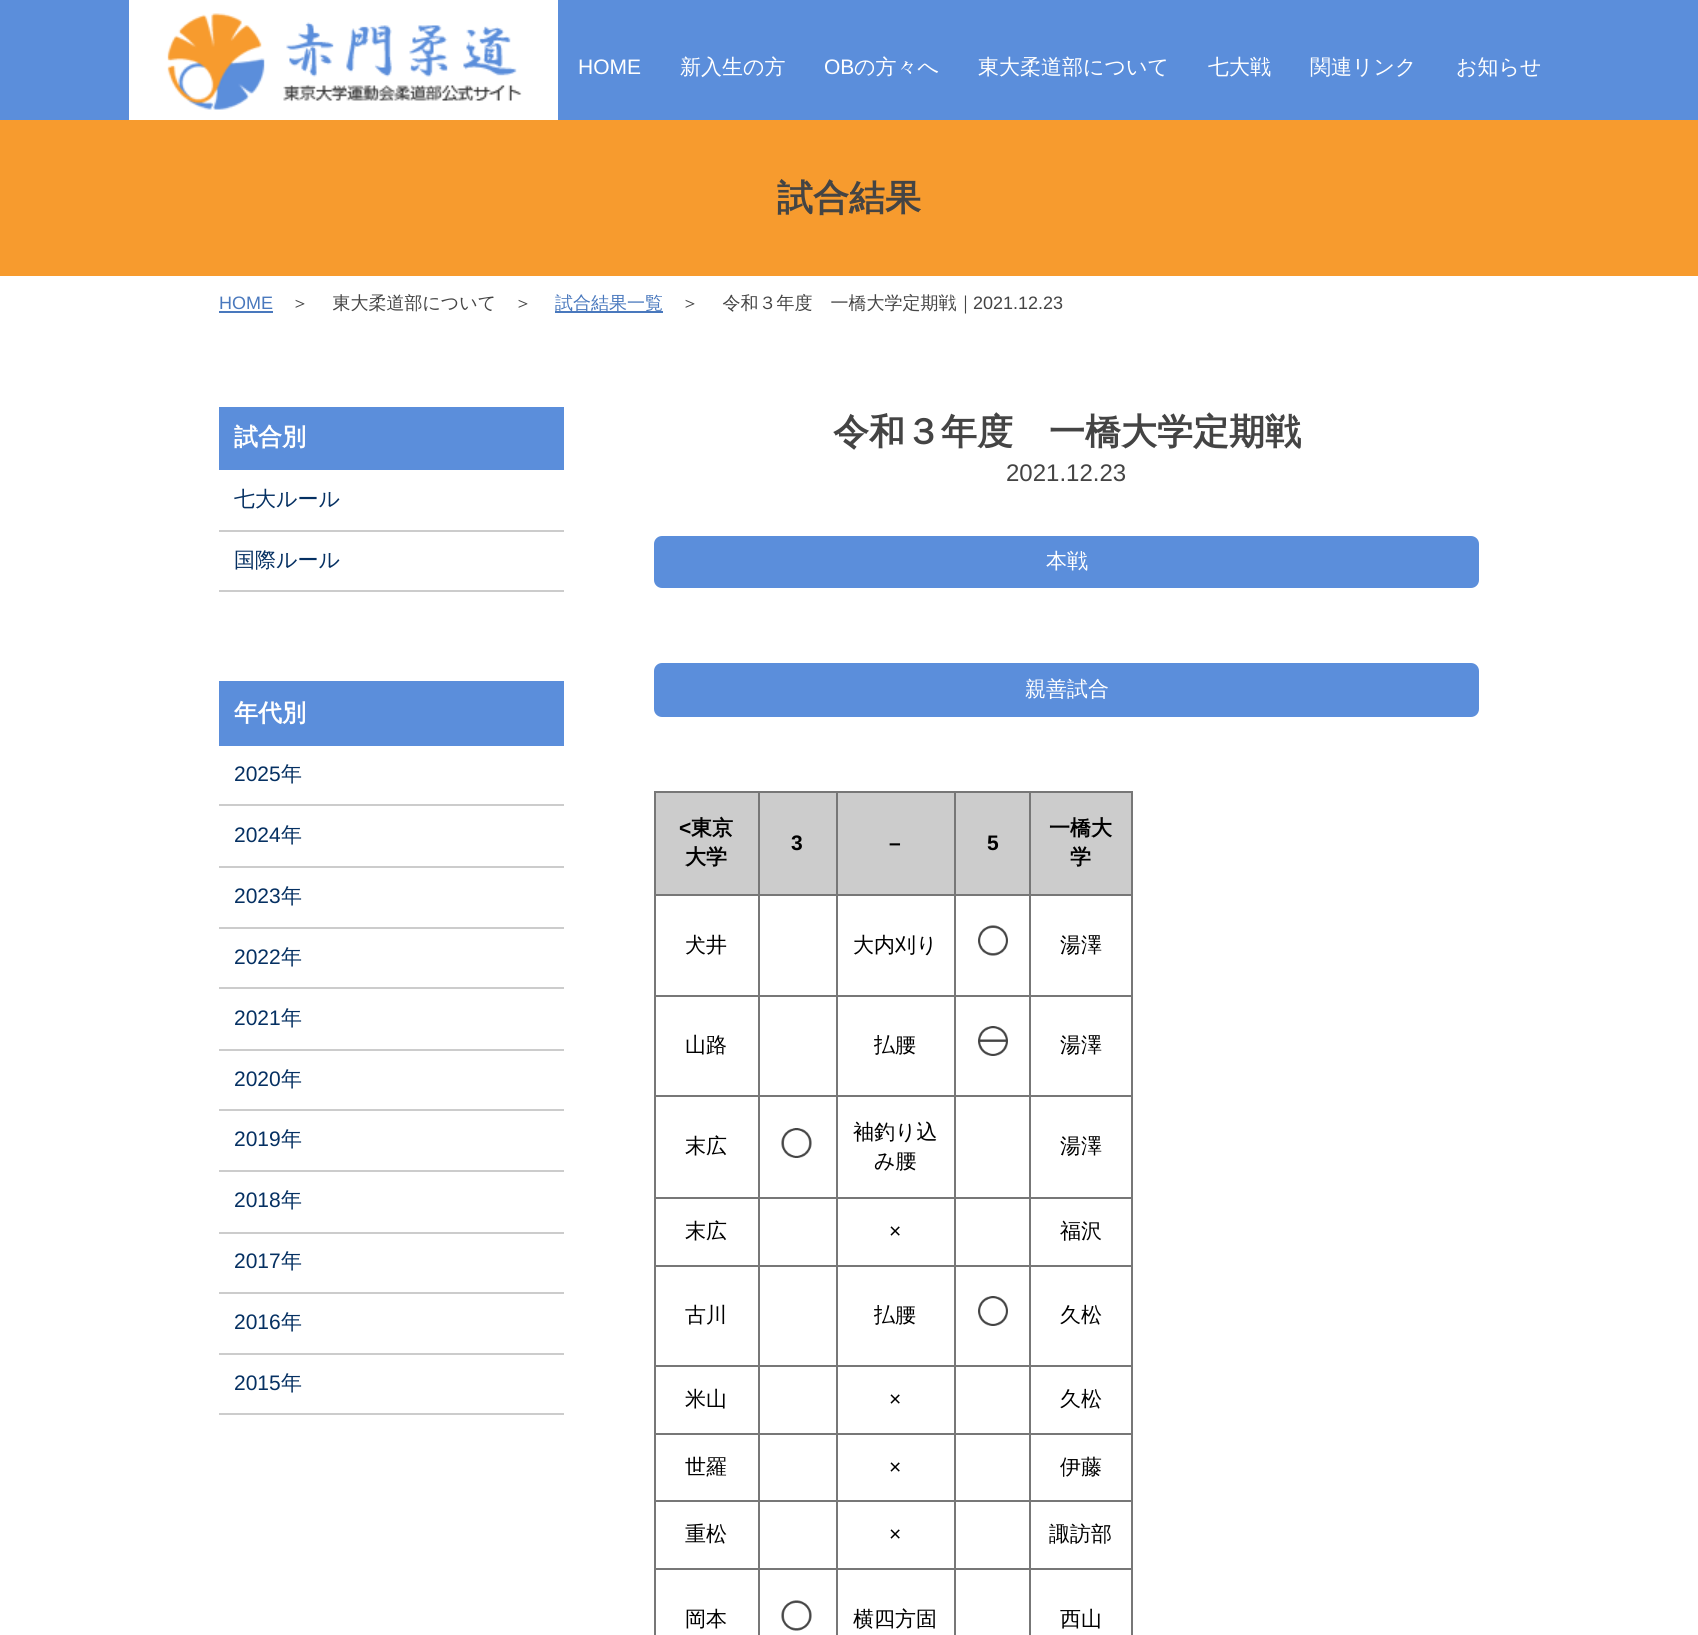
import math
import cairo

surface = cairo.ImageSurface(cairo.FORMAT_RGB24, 1698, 1635)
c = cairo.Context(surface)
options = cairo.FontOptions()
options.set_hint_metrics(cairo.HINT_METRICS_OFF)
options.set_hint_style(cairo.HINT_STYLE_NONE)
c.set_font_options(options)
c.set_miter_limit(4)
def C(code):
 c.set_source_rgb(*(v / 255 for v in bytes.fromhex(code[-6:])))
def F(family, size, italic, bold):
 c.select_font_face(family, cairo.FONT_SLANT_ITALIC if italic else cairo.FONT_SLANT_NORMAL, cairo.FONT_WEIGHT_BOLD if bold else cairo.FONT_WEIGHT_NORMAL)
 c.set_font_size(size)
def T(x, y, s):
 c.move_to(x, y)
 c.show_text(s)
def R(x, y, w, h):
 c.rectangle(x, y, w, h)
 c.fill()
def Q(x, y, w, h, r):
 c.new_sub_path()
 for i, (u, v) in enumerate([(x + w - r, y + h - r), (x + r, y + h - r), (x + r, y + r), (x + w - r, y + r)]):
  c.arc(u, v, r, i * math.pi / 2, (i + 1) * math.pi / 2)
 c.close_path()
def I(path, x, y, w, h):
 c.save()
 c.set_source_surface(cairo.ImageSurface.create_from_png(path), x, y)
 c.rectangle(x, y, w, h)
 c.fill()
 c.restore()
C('ffffff')
c.paint()
C('5b8edb')
R(0,0,1698,120)
C('ffffff')
R(129,0,429,120)
I('1.png',167,13,355,97)
F('Liberation Sans',21,0,0)
T(578,74,'HOME')
F('WenQuanYi Zen Hei Medium',21,0,0)
T(680,74,'新入生の方')
F('Liberation Sans',21,0,0)
T(824,74,'OB')
F('WenQuanYi Zen Hei Medium',21,0,0)
T(854,74,'の方々へ')
T(978,74,'東大柔道部について')
T(1208,74,'七大戦')
T(1310,74,'関連リンク')
T(1456,74,'お知らせ')
C('f79b2e')
R(0,120,1698,156)
F('WenQuanYi Zen Hei',36,0,1)
C('444444')
T(777,210,'試合結果')
F('Liberation Sans',18,0,0)
C('4978bd')
T(219,309,'HOME')
R(219,311,54,2)
F('WenQuanYi Zen Hei Medium',18,0,0)
C('444444')
T(291,309,'＞　 東大柔道部について　＞')
C('4978bd')
R(555,311,108,2)
T(555,309,'試合結果一覧')
C('444444')
T(681,309,'＞　 令和３年度　一橋大学定期戦｜')
F('Liberation Sans',18,0,0)
T(973,309,'2021.12.23')
C('5b8edb')
R(219,407,345,63)
F('WenQuanYi Zen Hei',24,0,1)
C('ffffff')
T(234,445,'試合別')
C('cccccc')
R(219,530,345,2)
F('WenQuanYi Zen Hei Medium',21,0,0)
C('053062')
T(234,506,'七大ルール')
C('cccccc')
R(219,590,345,2)
C('053062')
T(234,567,'国際ルール')
C('5b8edb')
R(219,681,345,65)
F('WenQuanYi Zen Hei',24,0,1)
C('ffffff')
T(234,721,'年代別')
C('cccccc')
R(219,804,345,2)
F('Liberation Sans',21,0,0)
C('053062')
T(234,781,'2025')
F('WenQuanYi Zen Hei Medium',21,0,0)
T(281,781,'年')
C('cccccc')
R(219,866,345,2)
F('Liberation Sans',21,0,0)
C('053062')
T(234,842,'2024')
F('WenQuanYi Zen Hei Medium',21,0,0)
T(281,842,'年')
C('cccccc')
R(219,927,345,2)
F('Liberation Sans',21,0,0)
C('053062')
T(234,903,'2023')
F('WenQuanYi Zen Hei Medium',21,0,0)
T(281,903,'年')
C('cccccc')
R(219,987,345,2)
F('Liberation Sans',21,0,0)
C('053062')
T(234,964,'2022')
F('WenQuanYi Zen Hei Medium',21,0,0)
T(281,964,'年')
C('cccccc')
R(219,1049,345,2)
F('Liberation Sans',21,0,0)
C('053062')
T(234,1025,'2021')
F('WenQuanYi Zen Hei Medium',21,0,0)
T(281,1025,'年')
C('cccccc')
R(219,1109,345,2)
F('Liberation Sans',21,0,0)
C('053062')
T(234,1086,'2020')
F('WenQuanYi Zen Hei Medium',21,0,0)
T(281,1086,'年')
C('cccccc')
R(219,1170,345,2)
F('Liberation Sans',21,0,0)
C('053062')
T(234,1146,'2019')
F('WenQuanYi Zen Hei Medium',21,0,0)
T(281,1146,'年')
C('cccccc')
R(219,1232,345,2)
F('Liberation Sans',21,0,0)
C('053062')
T(234,1207,'2018')
F('WenQuanYi Zen Hei Medium',21,0,0)
T(281,1207,'年')
C('cccccc')
R(219,1292,345,2)
F('Liberation Sans',21,0,0)
C('053062')
T(234,1268,'2017')
F('WenQuanYi Zen Hei Medium',21,0,0)
T(281,1268,'年')
C('cccccc')
R(219,1353,345,2)
F('Liberation Sans',21,0,0)
C('053062')
T(234,1329,'2016')
F('WenQuanYi Zen Hei Medium',21,0,0)
T(281,1329,'年')
C('cccccc')
R(219,1413,345,2)
F('Liberation Sans',21,0,0)
C('053062')
T(234,1390,'2015')
F('WenQuanYi Zen Hei Medium',21,0,0)
T(281,1390,'年')
F('WenQuanYi Zen Hei',36,0,1)
C('444444')
T(833,444,'令和３年度　一橋大学定期戦')
F('Liberation Sans',24,0,0)
T(1006,481,'2021.12.23')
C('5b8edb')
Q(654,536,825,52,8)
c.fill()
F('WenQuanYi Zen Hei Medium',21,0,0)
C('ffffff')
T(1046,568,'本戦')
C('5b8edb')
Q(654,663,825,54,8)
c.fill()
C('ffffff')
T(1025,696,'親善試合')
C('777777')
R(654,791,479,2)
R(1131,791,2,844)
R(654,791,2,844)
C('cccccc')
R(656,793,102,101)
C('777777')
R(1029,1568,2,67)
R(1029,1568,104,2)
R(1029,1500,2,69)
R(1029,1500,104,2)
R(1029,1433,2,69)
R(1029,1433,104,2)
R(1029,1365,2,69)
R(1029,1365,104,2)
R(1029,1265,2,102)
R(1029,1265,104,2)
R(1029,1197,2,69)
R(1029,1197,104,2)
R(1029,1095,2,104)
R(1029,1095,104,2)
R(1029,995,2,102)
R(1029,995,104,2)
R(1029,894,2,102)
R(1029,894,104,2)
R(1029,791,2,105)
R(954,1568,2,67)
R(954,1568,77,2)
R(954,1500,2,69)
R(954,1500,77,2)
R(954,1433,2,69)
R(954,1433,77,2)
R(954,1365,2,69)
R(954,1365,77,2)
R(954,1265,2,102)
R(954,1265,77,2)
R(954,1197,2,69)
R(954,1197,77,2)
R(954,1095,2,104)
R(954,1095,77,2)
R(954,995,2,102)
R(954,995,77,2)
R(954,894,2,102)
R(954,894,77,2)
R(954,791,2,105)
R(836,1568,2,67)
R(836,1568,120,2)
R(836,1500,2,69)
R(836,1500,120,2)
R(836,1433,2,69)
R(836,1433,120,2)
R(836,1365,2,69)
R(836,1365,120,2)
R(836,1265,2,102)
R(836,1265,120,2)
R(836,1197,2,69)
R(836,1197,120,2)
R(836,1095,2,104)
R(836,1095,120,2)
R(836,995,2,102)
R(836,995,120,2)
R(836,894,2,102)
R(836,894,120,2)
R(836,791,2,105)
R(758,1568,2,67)
R(758,1568,79,2)
R(758,1500,2,69)
R(758,1500,79,2)
R(758,1433,2,69)
R(758,1433,79,2)
R(758,1365,2,69)
R(758,1365,79,2)
R(758,1265,2,102)
R(758,1265,79,2)
R(758,1197,2,69)
R(758,1197,79,2)
R(758,1095,2,104)
R(758,1095,79,2)
R(758,995,2,102)
R(758,995,79,2)
R(758,894,2,102)
R(758,894,79,2)
R(758,791,2,105)
R(654,894,105,2)
F('Liberation Sans',21,0,1)
C('000000')
T(679,835,'<')
F('WenQuanYi Zen Hei',21,0,1)
T(691,835,'東京')
T(685,864,'大学')
C('cccccc')
R(760,793,76,101)
F('Liberation Sans',21,0,1)
C('000000')
T(791,850,'3')
C('cccccc')
R(838,793,116,101)
C('000000')
T(889,850,'–')
C('cccccc')
R(956,793,73,101)
C('000000')
T(987,850,'5')
C('cccccc')
R(1031,793,100,101)
F('WenQuanYi Zen Hei',21,0,1)
C('000000')
T(1049,835,'一橋大')
T(1070,864,'学')
C('777777')
R(654,995,105,2)
F('WenQuanYi Zen Hei Medium',21,0,0)
C('000000')
T(685,952,'犬井')
T(853,952,'大内刈り')
I('2.png',978,925,30,31)
T(1060,952,'湯澤')
C('777777')
R(654,1095,105,2)
C('000000')
T(685,1052,'山路')
T(874,1052,'払腰')
I('3.png',978,1026,30,30)
T(1060,1052,'湯澤')
C('777777')
R(654,1197,105,2)
C('000000')
T(685,1153,'末広')
I('4.png',781,1128,31,30)
T(853,1139,'袖釣り込')
T(874,1168,'み腰')
T(1060,1153,'湯澤')
C('777777')
R(654,1265,105,2)
C('000000')
T(685,1238,'末広')
F('Liberation Sans',21,0,0)
T(889,1238,'×')
F('WenQuanYi Zen Hei Medium',21,0,0)
T(1060,1238,'福沢')
C('777777')
R(654,1365,105,2)
C('000000')
T(685,1322,'古川')
T(874,1322,'払腰')
I('5.png',978,1296,30,30)
T(1060,1322,'久松')
C('777777')
R(654,1433,105,2)
C('000000')
T(685,1406,'米山')
F('Liberation Sans',21,0,0)
T(889,1406,'×')
F('WenQuanYi Zen Hei Medium',21,0,0)
T(1060,1406,'久松')
C('777777')
R(654,1500,105,2)
C('000000')
T(685,1474,'世羅')
F('Liberation Sans',21,0,0)
T(889,1474,'×')
F('WenQuanYi Zen Hei Medium',21,0,0)
T(1060,1474,'伊藤')
C('777777')
R(654,1568,105,2)
C('000000')
T(685,1541,'重松')
F('Liberation Sans',21,0,0)
T(889,1541,'×')
F('WenQuanYi Zen Hei Medium',21,0,0)
T(1049,1541,'諏訪部')
T(685,1626,'岡本')
I('6.png',781,1600,31,31)
T(853,1626,'横四方固')
T(1060,1626,'西山')
surface.write_to_png('o.png')
